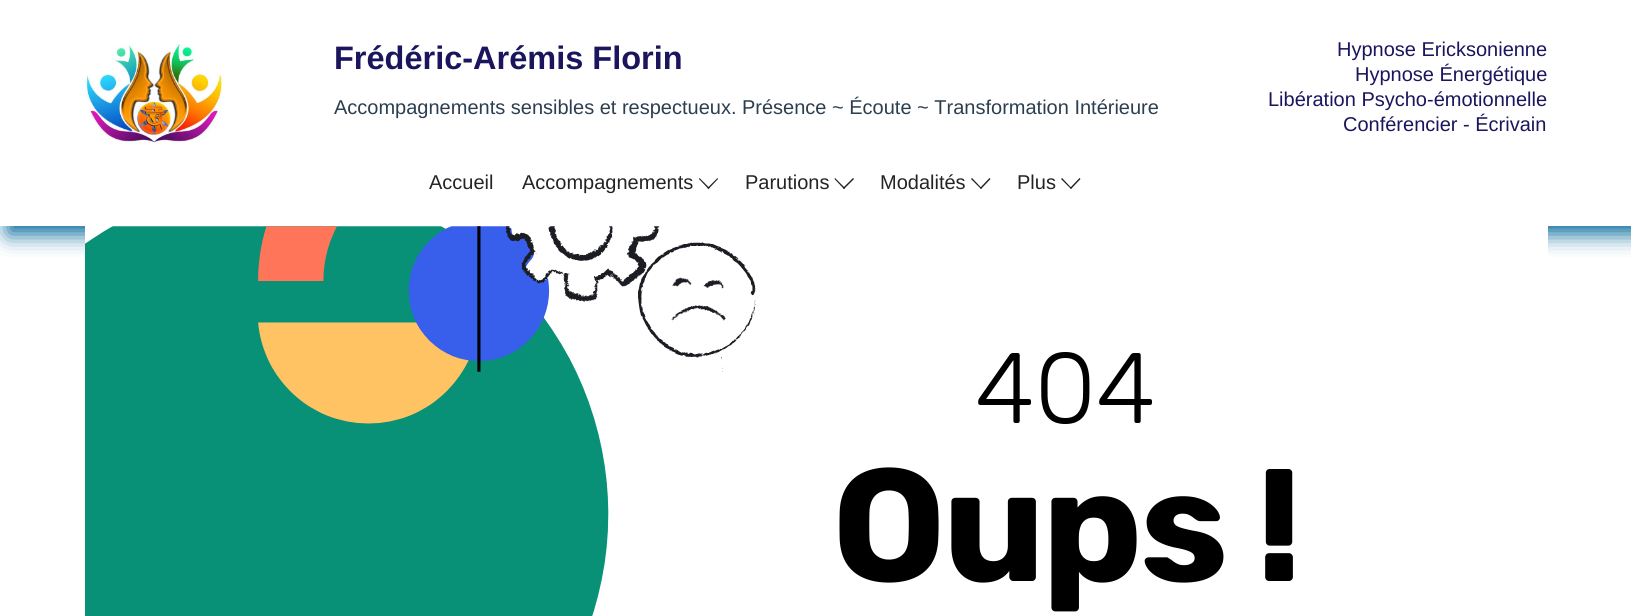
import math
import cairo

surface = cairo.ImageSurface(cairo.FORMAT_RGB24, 1631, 616)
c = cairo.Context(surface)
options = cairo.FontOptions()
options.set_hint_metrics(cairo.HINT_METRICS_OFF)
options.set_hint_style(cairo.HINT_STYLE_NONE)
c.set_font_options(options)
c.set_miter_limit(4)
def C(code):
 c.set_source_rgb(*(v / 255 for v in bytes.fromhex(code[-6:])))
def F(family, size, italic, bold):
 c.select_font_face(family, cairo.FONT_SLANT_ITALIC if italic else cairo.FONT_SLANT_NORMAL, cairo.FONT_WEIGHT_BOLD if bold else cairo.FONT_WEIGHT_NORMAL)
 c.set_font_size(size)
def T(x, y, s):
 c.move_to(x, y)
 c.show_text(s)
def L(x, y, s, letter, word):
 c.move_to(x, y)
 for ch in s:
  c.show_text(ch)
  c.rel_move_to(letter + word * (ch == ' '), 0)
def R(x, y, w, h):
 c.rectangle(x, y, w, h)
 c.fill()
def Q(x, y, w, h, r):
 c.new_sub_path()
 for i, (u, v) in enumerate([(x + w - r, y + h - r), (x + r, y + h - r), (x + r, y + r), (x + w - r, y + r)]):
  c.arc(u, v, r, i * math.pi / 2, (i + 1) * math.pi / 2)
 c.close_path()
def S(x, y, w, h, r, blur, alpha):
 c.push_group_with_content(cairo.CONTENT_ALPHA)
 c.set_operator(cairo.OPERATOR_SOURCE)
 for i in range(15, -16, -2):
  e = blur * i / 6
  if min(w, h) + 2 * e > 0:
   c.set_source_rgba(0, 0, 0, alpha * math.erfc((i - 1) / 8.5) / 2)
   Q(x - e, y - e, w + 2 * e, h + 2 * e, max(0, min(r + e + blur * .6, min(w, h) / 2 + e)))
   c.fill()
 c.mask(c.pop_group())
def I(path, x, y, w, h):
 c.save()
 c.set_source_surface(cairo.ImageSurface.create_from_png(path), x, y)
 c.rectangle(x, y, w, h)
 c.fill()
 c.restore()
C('ffffff')
c.paint()
c.save()
c.rectangle(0,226,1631,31)
c.clip()
C('006699')
S(8,8,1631,226,0,11,1)
c.restore()
I('1.png',85,44,138,100)
F('Liberation Sans',32.5,0,1)
C('1a155c')
T(334,69,'Frédéric-Arémis Florin')
F('Liberation Sans',20,0,0)
C('2c3e50')
T(334,114,'Accompagnements sensibles et respectueux. Présence ~ Écoute ~ Transformation Intérieure')
C('242424')
T(429,189,'Accueil')
T(522,189,'Accompagnements')
C('1c1d23')
c.new_path()
c.move_to(717.5,178)
c.line_to(718,179)
c.line_to(708.5,189)
c.line_to(707.5,188)
c.close_path()
c.fill()
c.new_path()
c.move_to(699.5,178)
c.line_to(709.5,188)
c.line_to(708.5,189)
c.line_to(699,179)
c.close_path()
c.fill()
C('242424')
T(745,189,'Parutions')
C('1c1d23')
c.new_path()
c.move_to(853,178)
c.line_to(854,179)
c.line_to(844,189)
c.line_to(843,188)
c.close_path()
c.fill()
c.new_path()
c.move_to(835,178)
c.line_to(845,188)
c.line_to(844,189)
c.line_to(834.5,179)
c.close_path()
c.fill()
C('242424')
T(880,189,'Modalités')
C('1c1d23')
c.new_path()
c.move_to(989.5,178)
c.line_to(990.5,179)
c.line_to(981,189)
c.line_to(980,188)
c.close_path()
c.fill()
c.new_path()
c.move_to(972,178)
c.line_to(981.5,188)
c.line_to(981,189)
c.line_to(971,179)
c.close_path()
c.fill()
C('242424')
T(1017,189,'Plus')
C('1c1d23')
c.new_path()
c.move_to(1079.5,178)
c.line_to(1080.5,179)
c.line_to(1071,189)
c.line_to(1070,188)
c.close_path()
c.fill()
c.new_path()
c.move_to(1062,178)
c.line_to(1071.5,188)
c.line_to(1071,189)
c.line_to(1061,179)
c.close_path()
c.fill()
C('1a155c')
T(1337,56,'Hypnose Ericksonienne')
T(1355,81,'Hypnose Énergétique')
T(1268,106,'Libération Psycho-émotionnelle')
T(1343,131,'Conférencier - Écrivain')
C('ffffff')
R(85,226,1463,34)
I('2.png',85,226,676,390)
F('Rubik Light',100,0,0)
C('000000')
T(975,423,'404')
F('Rubik',160,0,1)
L(832,581,'Oups !',-3.25,0)
surface.write_to_png('o.png')
